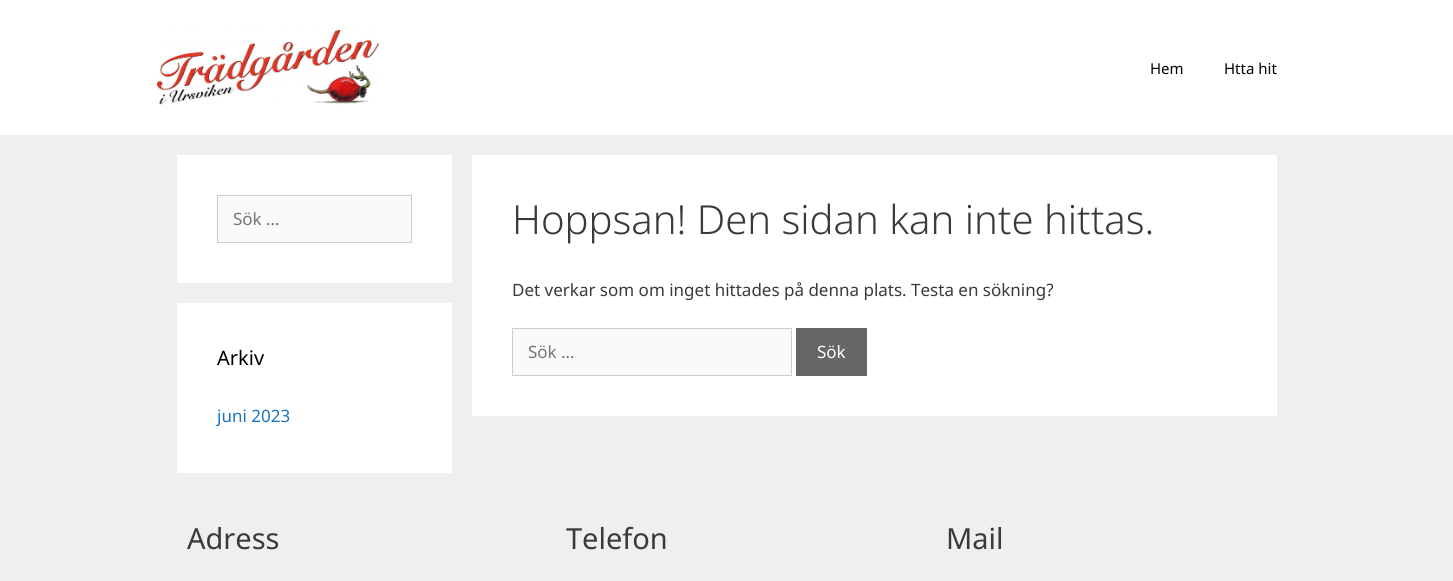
import math
import cairo

surface = cairo.ImageSurface(cairo.FORMAT_RGB24, 1453, 581)
c = cairo.Context(surface)
options = cairo.FontOptions()
options.set_hint_metrics(cairo.HINT_METRICS_OFF)
options.set_hint_style(cairo.HINT_STYLE_NONE)
c.set_font_options(options)
c.set_miter_limit(4)
def C(code):
 c.set_source_rgb(*(v / 255 for v in bytes.fromhex(code[-6:])))
def F(family, size, italic, bold):
 c.select_font_face(family, cairo.FONT_SLANT_ITALIC if italic else cairo.FONT_SLANT_NORMAL, cairo.FONT_WEIGHT_BOLD if bold else cairo.FONT_WEIGHT_NORMAL)
 c.set_font_size(size)
def T(x, y, s):
 c.move_to(x, y)
 c.show_text(s)
def R(x, y, w, h):
 c.rectangle(x, y, w, h)
 c.fill()
def I(path, x, y, w, h):
 c.save()
 c.set_source_surface(cairo.ImageSurface.create_from_png(path), x, y)
 c.rectangle(x, y, w, h)
 c.fill()
 c.restore()
C('efefef')
c.paint()
C('ffffff')
R(0,0,1453,135)
I('1.png',157,30,222,75)
F('Noto Sans',15,0,0)
C('000000')
T(1150,74,'Hem')
T(1224,74,'Htta hit')
C('ffffff')
R(177,155,275,128)
C('fafafa')
c.rectangle(217.5,195.5,194,47)
c.fill_preserve()
C('cccccc')
c.set_line_width(1)
c.stroke()
F('Noto Sans',17,0,0)
C('757575')
T(233,225,'Sök …')
C('ffffff')
R(177,303,275,170)
F('Noto Sans',20,0,0)
C('000000')
T(217,365,'Arkiv')
F('Noto Sans',17,0,0)
C('1e73be')
T(217,422,'juni 2023')
C('ffffff')
R(472,155,805,261)
F('Noto Sans Light',40,0,0)
C('3a3a3a')
T(512,234,'Hoppsan! Den sidan kan inte hittas.')
F('Noto Sans',17,0,0)
T(512,296,'Det verkar som om inget hittades på denna plats. Testa en sökning?')
C('fafafa')
c.rectangle(512.5,328.5,279,47)
c.fill_preserve()
C('cccccc')
c.stroke()
C('757575')
T(528,358,'Sök …')
C('666666')
R(796,328,71,48)
C('ffffff')
T(817,358,'Sök')
F('Noto Sans',29,0,0)
C('3a3a3a')
T(187,549,'Adress')
T(566,549,'Telefon')
T(946,549,'Mail')
surface.write_to_png('o.png')
